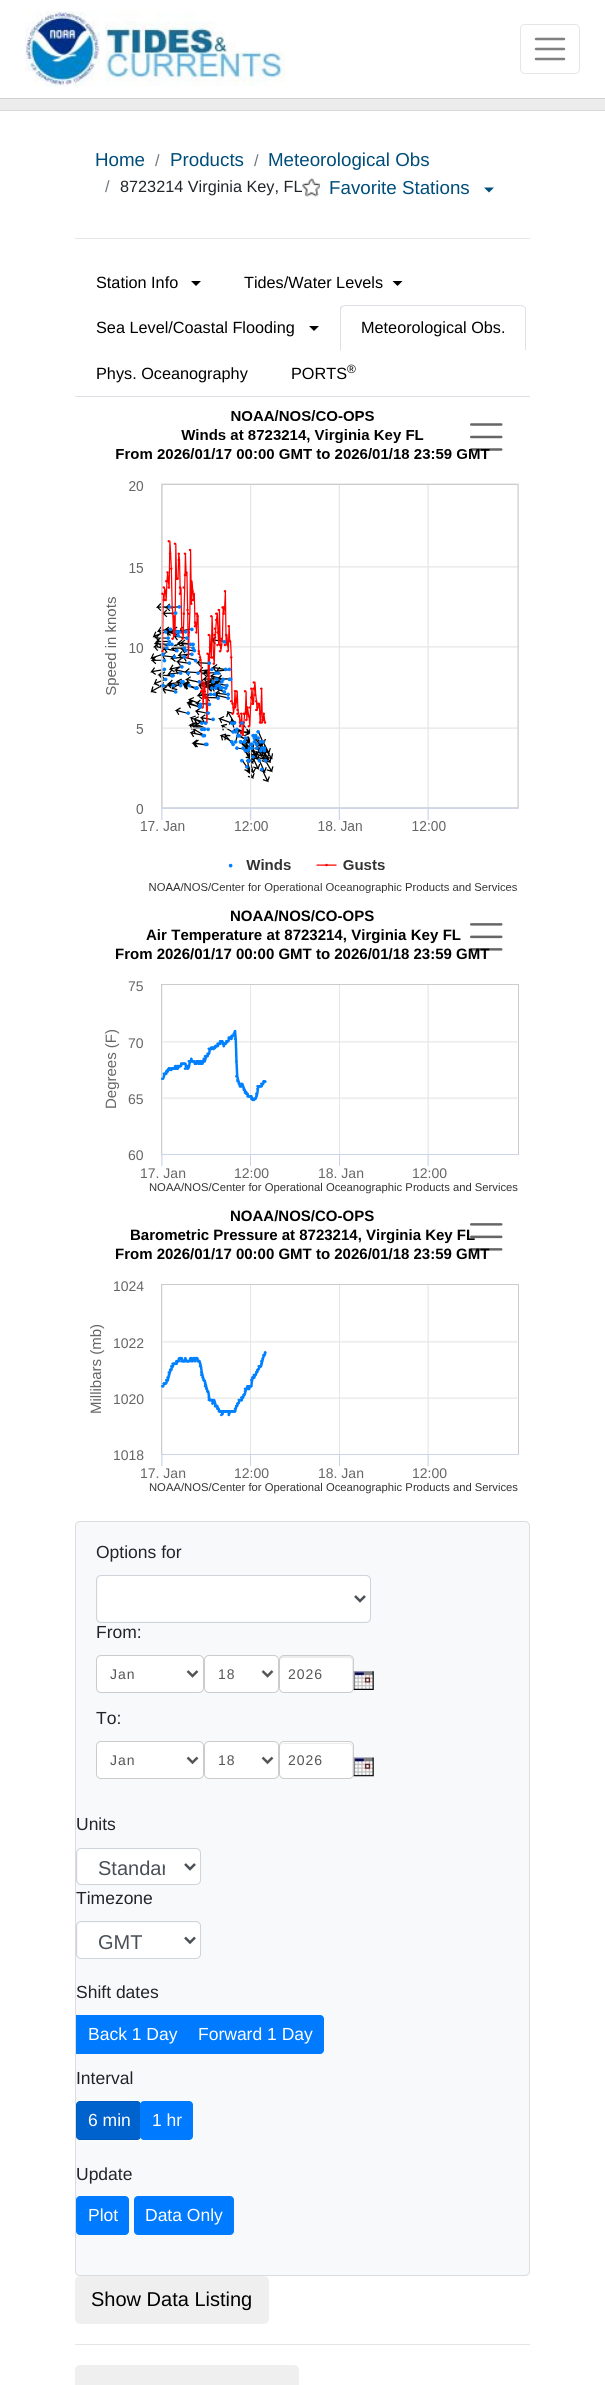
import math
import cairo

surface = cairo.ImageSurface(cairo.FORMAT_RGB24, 605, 2385)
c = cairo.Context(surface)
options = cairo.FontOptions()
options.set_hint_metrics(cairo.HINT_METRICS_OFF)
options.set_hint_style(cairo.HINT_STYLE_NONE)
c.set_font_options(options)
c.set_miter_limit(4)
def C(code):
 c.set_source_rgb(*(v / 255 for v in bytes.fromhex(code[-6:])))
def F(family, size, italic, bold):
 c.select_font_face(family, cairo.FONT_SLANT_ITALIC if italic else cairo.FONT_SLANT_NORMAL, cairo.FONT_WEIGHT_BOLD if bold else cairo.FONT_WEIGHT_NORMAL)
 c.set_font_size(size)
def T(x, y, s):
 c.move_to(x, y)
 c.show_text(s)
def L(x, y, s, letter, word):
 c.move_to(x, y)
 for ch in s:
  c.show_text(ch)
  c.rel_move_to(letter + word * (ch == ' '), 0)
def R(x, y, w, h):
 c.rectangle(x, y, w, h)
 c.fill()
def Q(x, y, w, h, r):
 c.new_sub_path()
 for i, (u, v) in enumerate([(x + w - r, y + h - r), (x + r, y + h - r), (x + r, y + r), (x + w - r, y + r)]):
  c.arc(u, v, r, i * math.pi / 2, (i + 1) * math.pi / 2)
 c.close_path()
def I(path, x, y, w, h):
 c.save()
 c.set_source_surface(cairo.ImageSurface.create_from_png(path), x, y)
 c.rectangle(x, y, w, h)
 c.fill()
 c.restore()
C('ffffff')
c.paint()
C('d1d1d1')
R(0,98,605,1)
I('1.png',25,11,75,76)
I('2.png',105,11,180,75)
Q(520.5,24.5,59,49,4.5)
C('e6e6e6')
c.set_line_width(1)
c.stroke()
c.new_path()
c.move_to(536,39)
c.line_to(564,39)
c.move_to(536,49)
c.line_to(564,49)
c.move_to(536,59)
c.line_to(564,59)
C('808080')
c.set_line_width(2.5)
c.set_line_cap(cairo.LINE_CAP_ROUND)
c.stroke()
C('ececec')
R(0,99,605,11)
C('d9d9d9')
R(0,110,605,1)
F('Liberation Sans',18.75,0,0)
C('004d7a')
T(95,166,'Home')
F('Liberation Sans',16.25,0,0)
C('6c757d')
T(155,166,'/')
F('Liberation Sans',18.75,0,0)
C('004d7a')
T(170,166,'Products')
F('Liberation Sans',16.25,0,0)
C('6c757d')
T(254,166,'/')
F('Liberation Sans',18.75,0,0)
C('004d7a')
T(268,166,'Meteorological Obs')
F('Liberation Sans',16.25,0,0)
C('6c757d')
T(105,192,'/')
C('212529')
T(120,192,'8723214 Virginia Key, FL')
I('3.png',302,178,18,19)
F('Liberation Sans',18.75,0,0)
C('004d7a')
T(329,194,'Favorite Stations')
c.new_path()
c.move_to(484,187.5)
c.line_to(494,187.5)
c.line_to(489,192.5)
c.close_path()
c.fill()
C('e6e6e6')
R(75,238,455,1)
C('dee2e6')
R(75,396,455,1)
F('Liberation Sans',16.25,0,0)
C('000000')
T(96,288,'Station Info')
c.new_path()
c.move_to(191,281)
c.line_to(201,281)
c.line_to(196,286)
c.close_path()
c.fill()
T(244,288,'Tides/Water Levels')
c.new_path()
c.move_to(392.5,281)
c.line_to(402.5,281)
c.line_to(397.5,286)
c.close_path()
c.fill()
T(96,333,'Sea Level/Coastal Flooding')
c.new_path()
c.move_to(309,326)
c.line_to(319,326)
c.line_to(314,331)
c.close_path()
c.fill()
C('dee2e6')
c.new_path()
c.move_to(345,305)
c.curve_to(344,305,342,306,341,306)
c.line_to(342,307)
c.line_to(345,306)
c.line_to(521,306)
c.line_to(524,307)
c.line_to(525,307)
c.curve_to(524,306,523,305,521,305)
c.close_path()
c.fill()
c.new_path()
c.move_to(525,307)
c.curve_to(526,307,526,309,526,310)
c.line_to(526,351)
c.line_to(525,350)
c.line_to(525,310)
c.curve_to(525,309,525,308,524,307)
c.close_path()
c.fill()
C('ffffff')
c.new_path()
c.move_to(526,351)
c.line_to(525,350)
c.line_to(341,350)
c.line_to(340,351)
c.close_path()
c.fill()
C('dee2e6')
c.new_path()
c.move_to(340,310)
c.line_to(340,351)
c.line_to(341,350)
c.line_to(341,310)
c.curve_to(341,309,342,308,342,307)
c.line_to(341,306)
c.curve_to(340,307,340,308,340,310)
c.close_path()
c.fill()
C('000000')
T(361,333,'Meteorological Obs.')
T(96,379,'Phys. Oceanography')
T(291,379,'PORTS')
F('Liberation Sans',12,0,0)
T(347,373,'®')
I('4.png',105,410,414,483)
F('Liberation Sans',15,0,1)
T(230,921,'NOAA/NOS/CO-OPS')
I('5.png',161,923,358,244)
L(146,940,'Air Temperature at 8723214, Virginia Key FL',0,.25)
T(115,959,'From 2026/01/17 00:00 GMT to 2026/01/18 23:59 GMT')
F('Liberation Sans',14,0,0)
C('666666')
T(128,991,'75')
F('Liberation Sans',15,0,0)
c.save()
c.translate(116,1109)
c.rotate(-90 * math.pi / 180)
T(0,0,'Degrees (F)')
c.restore()
F('Liberation Sans',14,0,0)
T(128,1048,'70')
T(128,1104,'65')
T(128,1160,'60')
T(140,1178,'17. Jan')
T(234,1178,'12:00')
T(318,1178,'18. Jan')
T(412,1178,'12:00')
F('Liberation Sans',11.25,0,0)
C('333333')
T(149,1191,'NOAA/NOS/Center for Operational Oceanographic Products and Services')
F('Liberation Sans',15,0,1)
C('000000')
T(230,1221,'NOAA/NOS/CO-OPS')
I('6.png',161,1223,358,244)
T(130,1240,'Barometric Pressure at 8723214, Virginia Key FL')
T(115,1259,'From 2026/01/17 00:00 GMT to 2026/01/18 23:59 GMT')
F('Liberation Sans',14,0,0)
C('666666')
T(113,1291,'1024')
F('Liberation Sans',15,0,0)
c.save()
c.translate(101,1414)
c.rotate(-90 * math.pi / 180)
T(0,0,'Millibars (mb)')
c.restore()
F('Liberation Sans',14,0,0)
T(113,1348,'1022')
T(113,1404,'1020')
T(113,1460,'1018')
T(140,1478,'17. Jan')
T(234,1478,'12:00')
T(318,1478,'18. Jan')
T(412,1478,'12:00')
F('Liberation Sans',11.25,0,0)
C('333333')
T(149,1491,'NOAA/NOS/Center for Operational Oceanographic Products and Services')
C('f8f9fa')
Q(75,1521,455,755,5)
c.fill()
Q(75.5,1521.5,454,754,4.5)
c.set_source_rgba(0,0,0,0.12)
c.set_line_width(1)
c.set_line_cap(cairo.LINE_CAP_BUTT)
c.stroke()
F('Liberation Sans',17.5,0,0)
C('212529')
T(96,1558,'Options for')
C('ffffff')
Q(98,1576,272,45,4)
c.fill()
Q(96.5,1575.5,274,47,4.5)
C('ced4da')
c.stroke()
c.new_path()
c.move_to(355,1596)
c.line_to(360,1601)
c.line_to(365,1596)
C('495057')
c.set_line_width(2.5)
c.stroke()
C('212529')
T(96,1638,'From:')
C('ffffff')
Q(96.5,1655.5,107,37,4.5)
c.fill_preserve()
C('cccccc')
c.set_line_width(1)
c.stroke()
c.new_path()
c.move_to(187.5,1671)
c.line_to(192.5,1676)
c.line_to(197.5,1671)
C('555555')
c.set_line_width(2.5)
c.stroke()
F('Liberation Sans',14,0,0)
L(110,1679,'Jan',1,0)
C('ffffff')
Q(204.5,1655.5,74,37,4.5)
c.fill_preserve()
C('cccccc')
c.set_line_width(1)
c.stroke()
c.new_path()
c.move_to(262.5,1671)
c.line_to(267.5,1676)
c.line_to(272.5,1671)
C('555555')
c.set_line_width(2.5)
c.stroke()
L(218,1679,'18',1,0)
C('ffffff')
Q(279,1655,75,38,5)
c.fill()
C('ececec')
c.new_path()
c.move_to(284,1658)
c.line_to(338,1658)
c.curve_to(354,1658,352,1656,352,1670)
c.line_to(352,1690)
c.curve_to(353,1689,353,1688,353,1687)
c.line_to(353,1660)
c.curve_to(353,1658,351,1656,349,1656)
c.line_to(284,1656)
c.curve_to(282,1656,280,1658,280,1660)
c.line_to(280,1661)
c.curve_to(280,1659,282,1658,284,1658)
c.close_path()
c.fill()
Q(279.5,1655.5,74,37,4.5)
C('cccccc')
c.set_line_width(1)
c.stroke()
C('555555')
L(288,1679,'2026',1,0)
I('7.png',353,1671,21,19)
F('Liberation Sans',17.5,0,0)
C('212529')
T(96,1724,'To:')
C('ffffff')
Q(96.5,1741.5,107,37,4.5)
c.fill_preserve()
C('cccccc')
c.stroke()
c.new_path()
c.move_to(187.5,1757.5)
c.line_to(192.5,1762.5)
c.line_to(197.5,1757.5)
C('555555')
c.set_line_width(2.5)
c.stroke()
F('Liberation Sans',14,0,0)
L(110,1765,'Jan',1,0)
C('ffffff')
Q(204.5,1741.5,74,37,4.5)
c.fill_preserve()
C('cccccc')
c.set_line_width(1)
c.stroke()
c.new_path()
c.move_to(262.5,1757.5)
c.line_to(267.5,1762.5)
c.line_to(272.5,1757.5)
C('555555')
c.set_line_width(2.5)
c.stroke()
L(218,1765,'18',1,0)
C('ffffff')
Q(279,1741,75,38,5)
c.fill()
C('ececec')
c.new_path()
c.move_to(284,1744)
c.line_to(349,1744)
c.curve_to(354,1744,352,1754,352,1757)
c.line_to(352,1777)
c.curve_to(352,1776,353,1775,353,1774)
c.line_to(353,1747)
c.curve_to(353,1745,351,1743,349,1743)
c.line_to(284,1743)
c.curve_to(282,1743,280,1745,280,1747)
c.line_to(280,1748)
c.curve_to(280,1745,282,1744,284,1744)
c.close_path()
c.fill()
Q(279.5,1741.5,74,37,4.5)
C('cccccc')
c.set_line_width(1)
c.stroke()
C('555555')
L(288,1765,'2026',1,0)
I('8.png',353,1757,21,20)
F('Liberation Sans',17.5,0,0)
C('212529')
T(76,1830,'Units')
C('ffffff')
Q(78,1849,122,35,4)
c.fill()
Q(76.5,1848.5,124,36,4.5)
C('ced4da')
c.stroke()
c.new_path()
c.move_to(185,1864)
c.line_to(190,1869)
c.line_to(195,1864)
C('495057')
c.set_line_width(2.5)
c.stroke()
c.save()
c.rectangle(98,1856,67,24)
c.clip()
F('Liberation Sans',20,0,0)
T(98,1875,'Standar')
c.restore()
C('212529')
T(76,1904,'Timezone')
C('ffffff')
Q(78,1923,122,35,4)
c.fill()
Q(76.5,1921.5,124,37,4.5)
C('ced4da')
c.set_line_width(1)
c.stroke()
c.new_path()
c.move_to(185,1937.5)
c.line_to(190,1942.5)
c.line_to(195,1937.5)
C('495057')
c.set_line_width(2.5)
c.stroke()
F('Liberation Sans',20,0,0)
T(98,1949,'GMT')
F('Liberation Sans',17.5,0,0)
C('212529')
T(76,1998,'Shift dates')
C('007bff')
R(76,2015,112,39)
C('ffffff')
T(88,2040,'Back 1 Day')
C('007bff')
c.new_path()
c.move_to(188.5,2015.5)
c.line_to(320,2015.5)
c.curve_to(322,2015.5,323.5,2017,323.5,2019)
c.line_to(323.5,2050)
c.curve_to(323.5,2052,322,2053.5,320,2053.5)
c.line_to(188.5,2053.5)
c.close_path()
c.fill_preserve()
c.set_line_width(1)
c.stroke()
C('ffffff')
T(198,2040,'Forward 1 Day')
C('212529')
T(76,2084,'Interval')
C('0062cc')
Q(76.5,2101.5,64,38,3.5)
c.fill_preserve()
C('005cbf')
c.stroke()
C('ffffff')
T(88,2126,'6 min')
C('007bff')
Q(140.5,2101.5,52,38,3.5)
c.fill_preserve()
c.stroke()
C('ffffff')
T(152,2126,'1 hr')
C('212529')
T(76,2180,'Update')
C('007bff')
Q(76.5,2196.5,52,38,3.5)
c.fill_preserve()
c.stroke()
C('ffffff')
T(88,2221,'Plot')
C('007bff')
Q(134.5,2196.5,99,38,3.5)
c.fill_preserve()
c.stroke()
C('ffffff')
T(145,2221,'Data Only')
C('efefef')
Q(75,2276,194,48,5)
c.fill()
F('Liberation Sans',20,0,0)
C('000000')
T(91,2306,'Show Data Listing')
C('e6e6e6')
R(75,2344,455,1)
C('efefef')
Q(75,2365,224,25,5)
c.fill()
surface.write_to_png('o.png')
